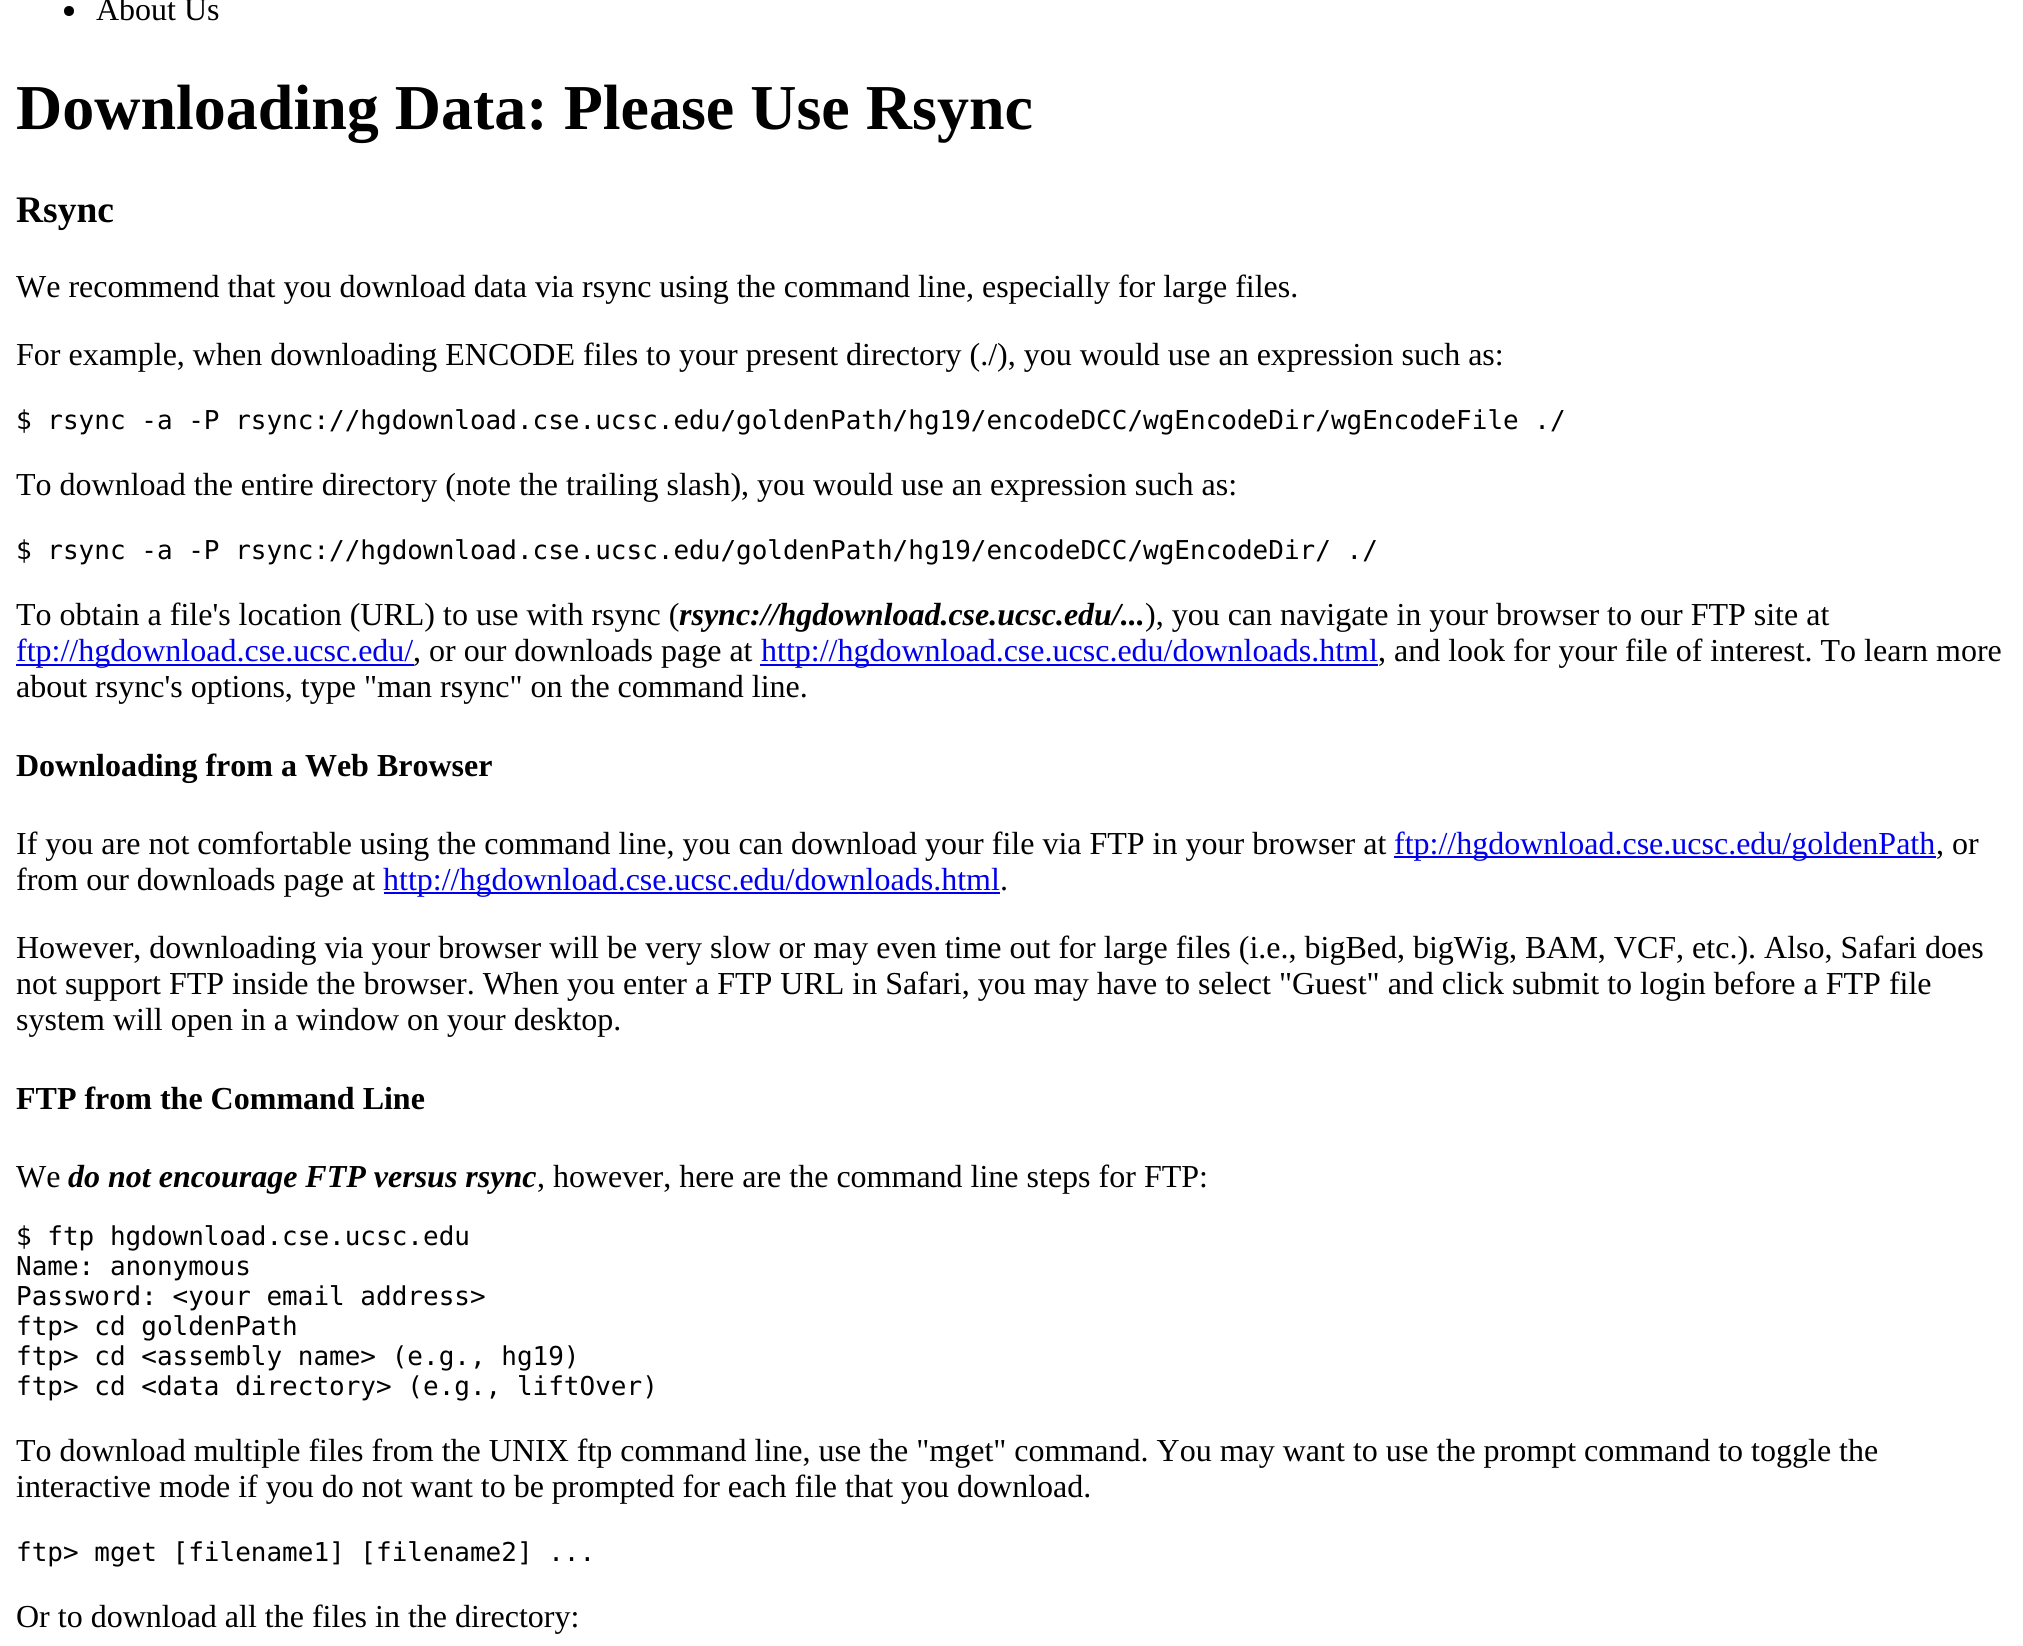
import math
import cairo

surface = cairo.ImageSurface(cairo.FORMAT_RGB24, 2023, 1646)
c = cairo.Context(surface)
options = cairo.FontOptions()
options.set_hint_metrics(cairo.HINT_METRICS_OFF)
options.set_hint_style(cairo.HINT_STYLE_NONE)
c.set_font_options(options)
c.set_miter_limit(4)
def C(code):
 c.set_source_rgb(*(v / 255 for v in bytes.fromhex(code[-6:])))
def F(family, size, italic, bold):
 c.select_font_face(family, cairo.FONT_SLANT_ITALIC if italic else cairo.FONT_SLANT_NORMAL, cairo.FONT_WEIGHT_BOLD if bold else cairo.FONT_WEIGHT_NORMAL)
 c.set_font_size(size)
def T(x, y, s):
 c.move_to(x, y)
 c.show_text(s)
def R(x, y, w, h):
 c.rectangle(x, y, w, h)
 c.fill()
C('ffffff')
c.paint()
C('000000')
c.arc(69,11,5,0,2 * math.pi)
c.fill()
F('Liberation Serif',32,0,0)
T(96,20,'About Us')
F('Liberation Serif',64,0,1)
T(16,129,'Downloading Data: Please Use Rsync')
F('Liberation Serif',37.5,0,1)
T(16,222,'Rsync')
F('Liberation Serif',32,0,0)
T(16,297,'We recommend that you download data via rsync using the command line, especially for large files.')
T(16,365,'For example, when downloading ENCODE files to your present directory (./), you would use an expression such as:')
F('DejaVu Sans Mono',26,0,0)
T(16,429,'$ rsync -a -P rsync://hgdownload.cse.ucsc.edu/goldenPath/hg19/encodeDCC/wgEncodeDir/wgEncodeFile ./')
F('Liberation Serif',32,0,0)
T(16,495,'To download the entire directory (note the trailing slash), you would use an expression such as:')
F('DejaVu Sans Mono',26,0,0)
T(16,559,'$ rsync -a -P rsync://hgdownload.cse.ucsc.edu/goldenPath/hg19/encodeDCC/wgEncodeDir/ ./')
F('Liberation Serif',32,0,0)
T(16,625,'To obtain a file\'s location (URL) to use with rsync (')
F('Liberation Serif',32,1,1)
T(679,625,'rsync://hgdownload.cse.ucsc.edu/...')
F('Liberation Serif',32,0,0)
T(1145,625,'), you can navigate in your browser to our FTP site at')
C('0000ee')
R(16,664,398,2)
T(16,661,'ftp://hgdownload.cse.ucsc.edu/')
C('000000')
T(413,661,', or our downloads page at')
C('0000ee')
R(760,664,618,2)
T(761,661,'http://hgdownload.cse.ucsc.edu/downloads.html')
C('000000')
T(1378,661,', and look for your file of interest. To learn more')
T(16,697,'about rsync\'s options, type "man rsync" on the command line.')
F('Liberation Serif',32,0,1)
T(16,776,'Downloading from a Web Browser')
F('Liberation Serif',32,0,0)
T(16,854,'If you are not comfortable using the command line, you can download your file via FTP in your browser at')
C('0000ee')
R(1394,856,542,2)
T(1394,854,'ftp://hgdownload.cse.ucsc.edu/goldenPath')
C('000000')
T(1936,854,', or')
T(16,890,'from our downloads page at')
C('0000ee')
R(384,892,616,2)
T(383,890,'http://hgdownload.cse.ucsc.edu/downloads.html')
C('000000')
T(1000,890,'.')
T(16,958,'However, downloading via your browser will be very slow or may even time out for large files (i.e., bigBed, bigWig, BAM, VCF, etc.). Also, Safari does')
T(16,994,'not support FTP inside the browser. When you enter a FTP URL in Safari, you may have to select "Guest" and click submit to login before a FTP file')
T(16,1030,'system will open in a window on your desktop.')
F('Liberation Serif',32,0,1)
T(16,1109,'FTP from the Command Line')
F('Liberation Serif',32,0,0)
T(16,1187,'We')
F('Liberation Serif',32,1,1)
T(68,1187,'do not encourage FTP versus rsync')
F('Liberation Serif',32,0,0)
T(537,1187,', however, here are the command line steps for FTP:')
F('DejaVu Sans Mono',26,0,0)
T(16,1245,'$ ftp hgdownload.cse.ucsc.edu')
T(16,1275,'Name: anonymous')
T(16,1305,'Password: <your email address>')
T(16,1335,'ftp> cd goldenPath')
T(16,1365,'ftp> cd <assembly name> (e.g., hg19)')
T(16,1395,'ftp> cd <data directory> (e.g., liftOver)')
F('Liberation Serif',32,0,0)
T(16,1461,'To download multiple files from the UNIX ftp command line, use the "mget" command. You may want to use the prompt command to toggle the')
T(16,1497,'interactive mode if you do not want to be prompted for each file that you download.')
F('DejaVu Sans Mono',26,0,0)
T(16,1561,'ftp> mget [filename1] [filename2] ...')
F('Liberation Serif',32,0,0)
T(16,1627,'Or to download all the files in the directory:')
surface.write_to_png('o.png')
